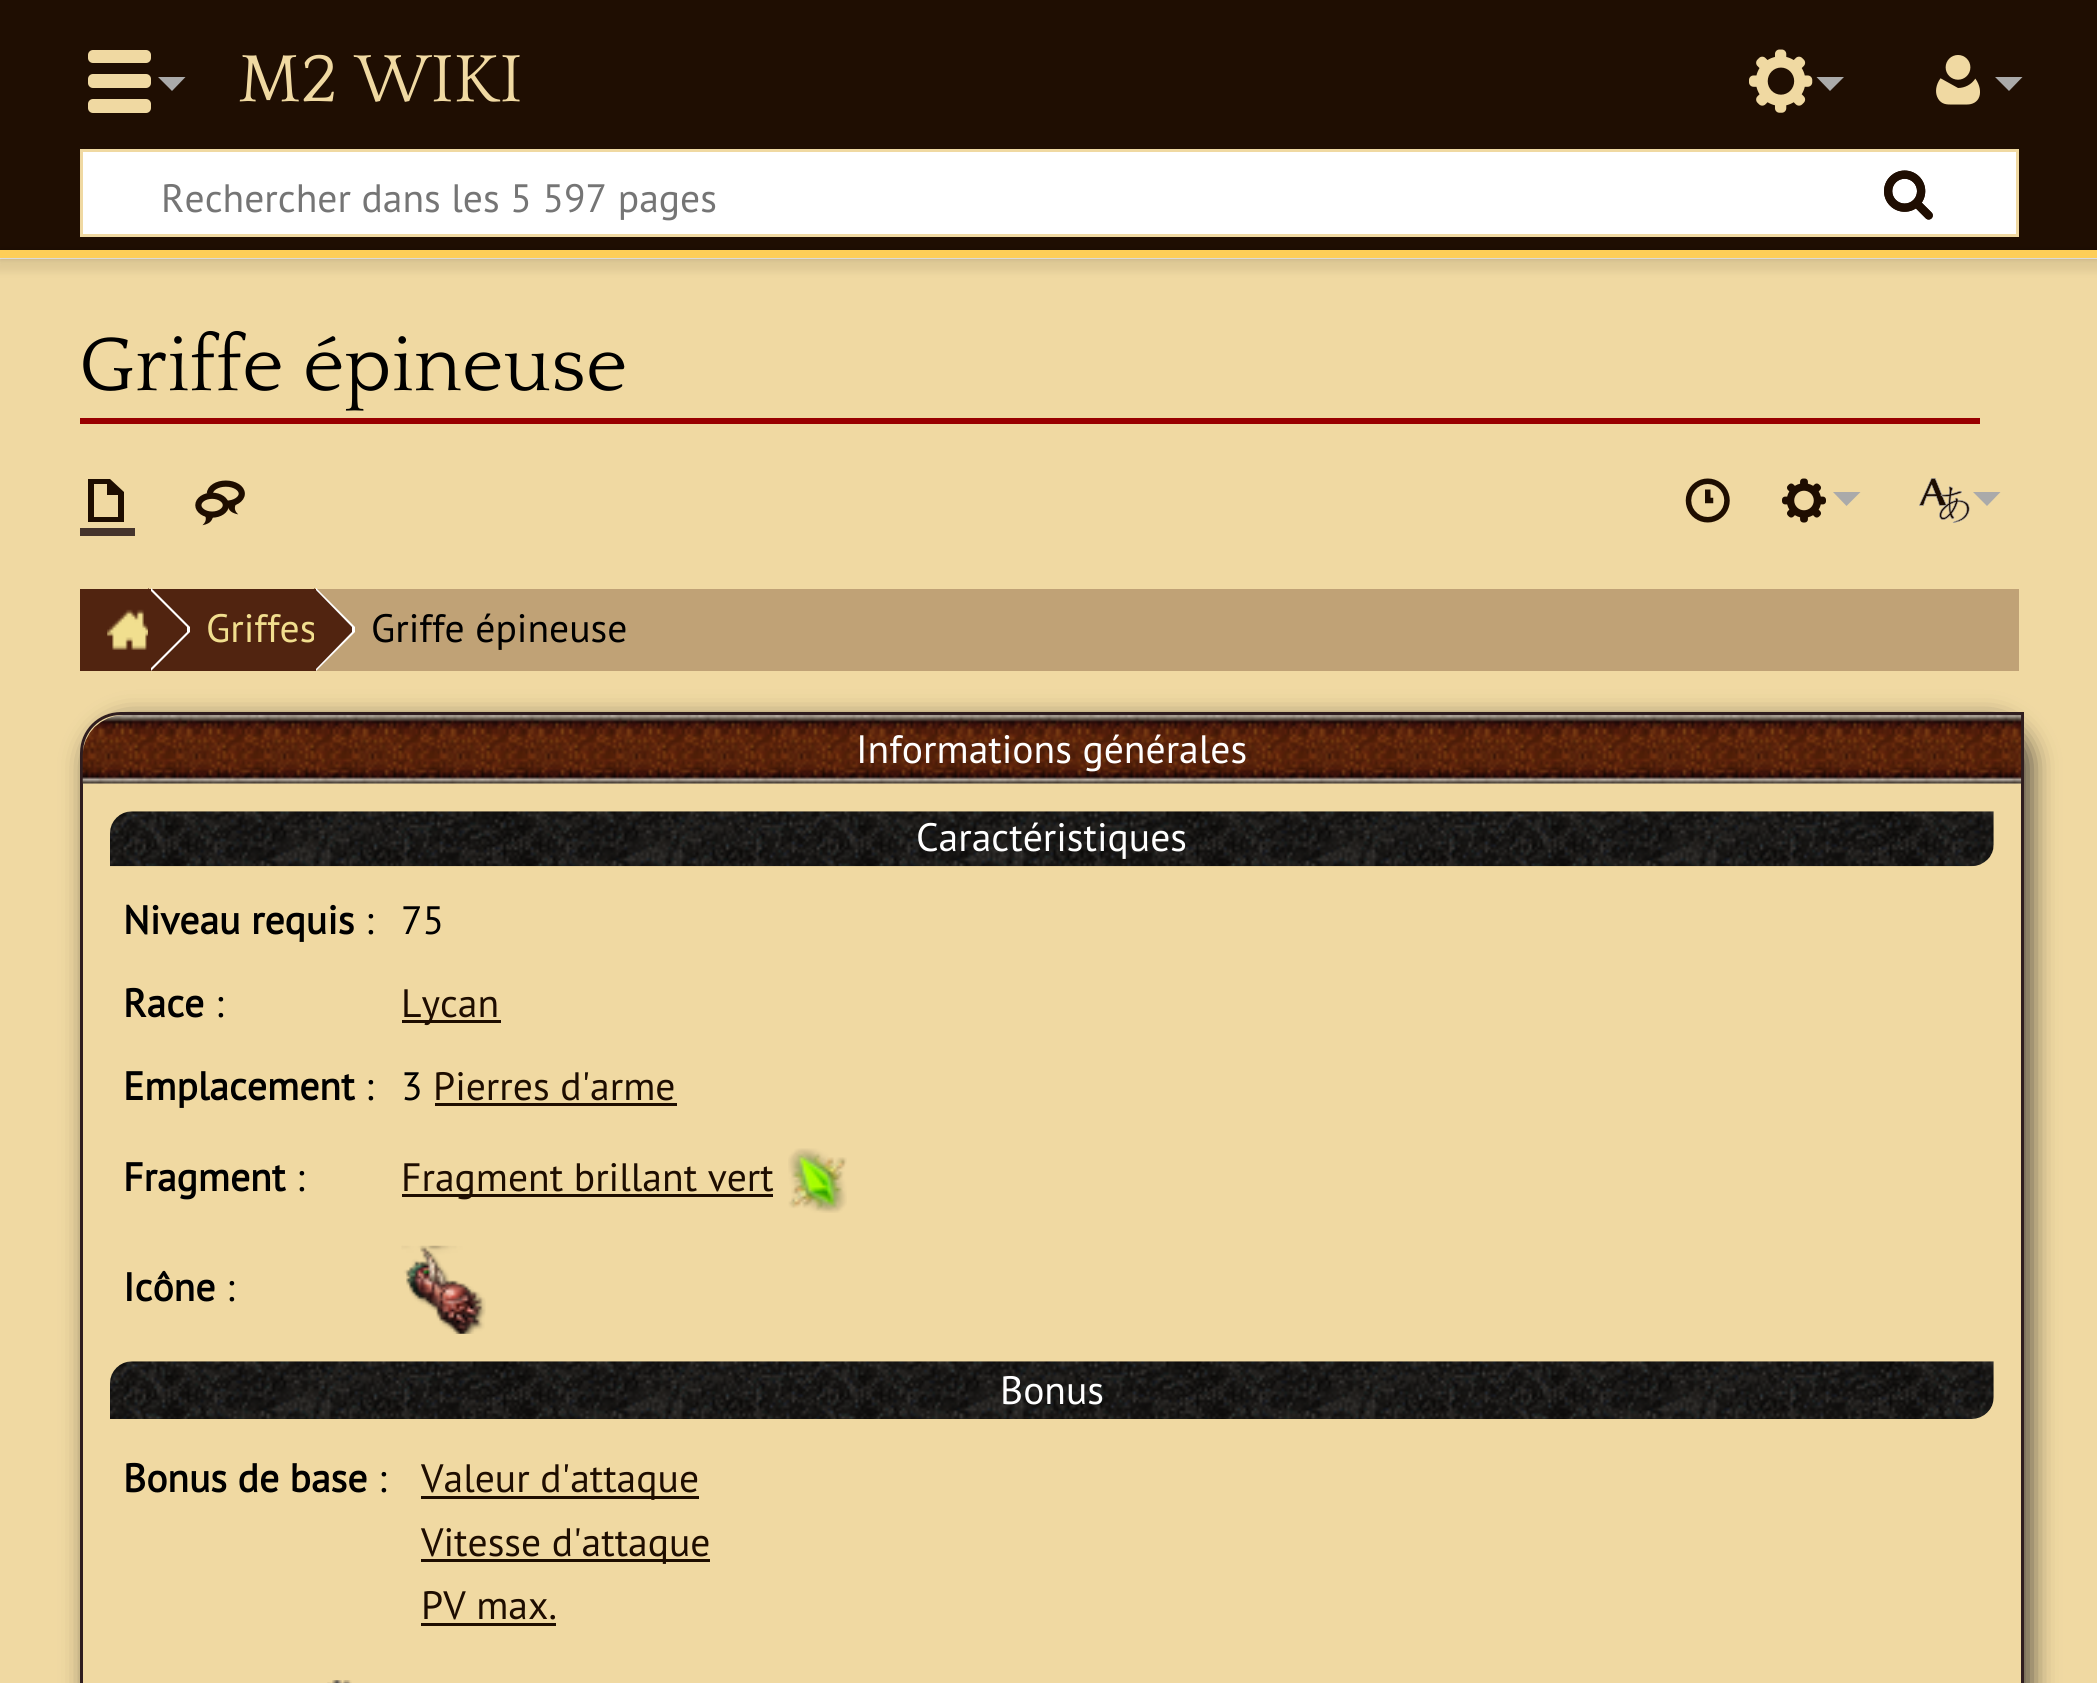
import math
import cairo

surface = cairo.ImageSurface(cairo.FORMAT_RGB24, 2097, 1683)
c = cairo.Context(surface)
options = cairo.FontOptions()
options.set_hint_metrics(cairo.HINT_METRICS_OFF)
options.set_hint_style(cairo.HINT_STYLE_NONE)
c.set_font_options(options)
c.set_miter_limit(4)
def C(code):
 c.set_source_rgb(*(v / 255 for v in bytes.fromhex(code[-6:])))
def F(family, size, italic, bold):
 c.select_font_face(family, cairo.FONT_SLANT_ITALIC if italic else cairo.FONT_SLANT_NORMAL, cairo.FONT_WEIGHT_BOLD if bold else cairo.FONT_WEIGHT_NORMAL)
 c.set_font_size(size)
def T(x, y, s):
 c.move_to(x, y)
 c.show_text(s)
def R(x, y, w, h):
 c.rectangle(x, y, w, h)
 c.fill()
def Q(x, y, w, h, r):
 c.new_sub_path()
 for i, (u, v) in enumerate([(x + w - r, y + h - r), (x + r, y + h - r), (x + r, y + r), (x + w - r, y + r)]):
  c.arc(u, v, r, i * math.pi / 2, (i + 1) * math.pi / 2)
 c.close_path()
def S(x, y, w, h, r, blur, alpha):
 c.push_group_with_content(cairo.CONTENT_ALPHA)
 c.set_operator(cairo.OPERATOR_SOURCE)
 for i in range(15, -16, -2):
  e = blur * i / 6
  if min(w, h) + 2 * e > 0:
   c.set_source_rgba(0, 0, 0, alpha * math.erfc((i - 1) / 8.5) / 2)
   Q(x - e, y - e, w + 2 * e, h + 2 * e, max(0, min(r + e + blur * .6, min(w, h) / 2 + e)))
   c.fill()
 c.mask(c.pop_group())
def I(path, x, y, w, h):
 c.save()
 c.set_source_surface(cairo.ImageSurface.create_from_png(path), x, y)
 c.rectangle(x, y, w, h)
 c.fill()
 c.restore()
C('1f0e02')
c.paint()
F('Quattrocento',69.5,0,0)
C('f0d9a2')
T(238,101,'M2 WIKI')
I('1.png',1936,55,44,50)
C('aaaaaa')
c.new_path()
c.move_to(2022.5,77)
c.line_to(2009,91)
c.line_to(1995,77)
c.close_path()
c.fill()
C('ffffff')
c.rectangle(81.5,150.5,1936,85)
c.fill_preserve()
C('f0d9a2')
c.set_line_width(3)
c.stroke()
I('2.png',1884,170,49,50)
F('PT Sans',39.6,0,0)
C('757575')
T(161,212,'Rechercher dans les 5 597 pages')
I('3.png',1884,170,49,50)
C('ffffff')
R(0,258,2097,1)
C('f0d9a2')
R(0,259,2097,1424)
C('000000')
S(0,250,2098,8,0,3,.2)
S(-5,253,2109,19,0,4,.07)
C('fece58')
R(0,250,2097,8)
C('f0d9a2')
Q(88,99,63,14,5)
c.fill()
Q(88,74,63,14,5)
c.fill()
Q(88,50,63,13,5)
c.fill()
C('aaaaaa')
c.new_path()
c.move_to(185.5,77)
c.line_to(172,91)
c.line_to(158,77)
c.close_path()
c.fill()
I('4.png',1749,49,64,64)
c.new_path()
c.move_to(1844,77)
c.line_to(1830,91)
c.line_to(1816.5,77)
c.close_path()
c.fill()
C('990000')
R(80,418,1900,6)
F('Quattrocento',79.25,0,0)
C('000000')
T(79,390,'Griffe épineuse')
C('45342c')
R(80,528,55,8)
C('1e0d00')
c.set_fill_rule(cairo.FILL_RULE_EVEN_ODD)
c.new_path()
c.move_to(88,479)
c.line_to(88,522)
c.line_to(124,522)
c.line_to(124,492)
c.line_to(110,479)
c.close_path()
c.move_to(94,484)
c.line_to(107,484)
c.line_to(107,495)
c.line_to(118,495)
c.line_to(118,517)
c.line_to(94,517)
c.close_path()
c.fill()
I('5.png',195,480,50,46)
I('6.png',1685,478,45,45)
I('7.png',1782,478,44,45)
C('aaaaaa')
c.set_fill_rule(cairo.FILL_RULE_WINDING)
c.new_path()
c.move_to(1860.5,492)
c.line_to(1846.5,506)
c.line_to(1833,492)
c.close_path()
c.fill()
I('8.png',1919,478,51,45)
c.new_path()
c.move_to(2000.5,492)
c.line_to(1987,506)
c.line_to(1973,492)
c.close_path()
c.fill()
C('c0a276')
R(316,589,1703,82)
C('512410')
R(80,589,236,82)
C('ffffff')
c.new_path()
c.move_to(151,671)
c.line_to(151,588)
c.line_to(190,627)
c.line_to(190,632)
c.close_path()
c.fill()
C('512410')
c.new_path()
c.move_to(148,671)
c.line_to(148,588)
c.line_to(187,627)
c.line_to(187,632)
c.close_path()
c.fill()
I('9.png',107,609,41,41)
F('PT Sans',39.6,0,0)
C('f1de8e')
T(206,642,'Griffes')
C('ffffff')
c.new_path()
c.move_to(316,671)
c.line_to(316,588)
c.line_to(355,627)
c.line_to(355,632)
c.close_path()
c.fill()
C('512410')
c.new_path()
c.move_to(314,671)
c.line_to(314,588)
c.line_to(352,627)
c.line_to(352,632)
c.close_path()
c.fill()
C('000000')
T(371,642,'Griffe épineuse')
c.save()
c.set_fill_rule(cairo.FILL_RULE_EVEN_ODD)
c.new_path()
c.move_to(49,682)
c.line_to(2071,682)
c.line_to(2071,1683)
c.line_to(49,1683)
c.close_path()
c.move_to(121,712)
c.line_to(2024,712)
c.line_to(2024,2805)
c.curve_to(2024,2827.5,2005.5,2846,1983,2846)
c.line_to(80,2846)
c.line_to(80,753)
c.curve_to(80,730.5,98.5,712,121,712)
c.close_path()
c.clip()
C('544e41')
S(88,721,1944,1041,41,12.5,1)
c.restore()
c.new_path()
c.move_to(121,713.5)
c.line_to(2022.5,713.5)
c.line_to(2022.5,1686)
c.curve_to(2022.5,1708,2005,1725.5,1983,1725.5)
c.line_to(81.5,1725.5)
c.line_to(81.5,753)
c.curve_to(81.5,731,99,713.5,121,713.5)
c.close_path()
C('2f1d1f')
c.stroke()
I('10.png',82,715,1940,69)
C('ffffff')
T(856,763,'Informations générales')
I('11.png',110,811,1884,56)
T(916,851,'Caractéristiques')
F('PT Sans',39.6,0,1)
C('000000')
T(123,934,'Niveau requis')
F('PT Sans',39.6,0,0)
T(365,934,':')
T(401,934,'75')
F('PT Sans',39.6,0,1)
T(123,1017,'Race')
F('PT Sans',39.6,0,0)
T(215,1017,':')
C('1e0d00')
R(402,1020,99,3)
T(401,1017,'Lycan')
F('PT Sans',39.6,0,1)
C('000000')
T(123,1100,'Emplacement')
F('PT Sans',39.6,0,0)
T(365,1100,':')
T(401,1100,'3')
C('1e0d00')
T(433,1100,'Pierres d\'arme')
R(435,1103,242,3)
F('PT Sans',39.6,0,1)
C('000000')
T(123,1191,'Fragment')
F('PT Sans',39.6,0,0)
T(296,1191,':')
C('1e0d00')
R(402,1194,371,3)
T(401,1191,'Fragment brillant vert')
I('12.png',788,1148,59,65)
F('PT Sans',39.6,0,1)
C('000000')
T(123,1301,'Icône')
F('PT Sans',39.6,0,0)
T(226,1301,':')
I('13.png',401,1245,85,89)
I('14.png',110,1361,1884,58)
C('ffffff')
T(1000,1404,'Bonus')
F('PT Sans',39.6,0,1)
C('000000')
T(123,1492,'Bonus de base')
F('PT Sans',39.6,0,0)
T(378,1492,':')
C('1e0d00')
R(421,1496,278,3)
T(421,1492,'Valeur d\'attaque')
R(421,1559,289,3)
T(421,1556,'Vitesse d\'attaque')
T(421,1619,'PV max.')
R(421,1623,135,3)
I('15.png',327,1680,25,3)
surface.write_to_png('o.png')
